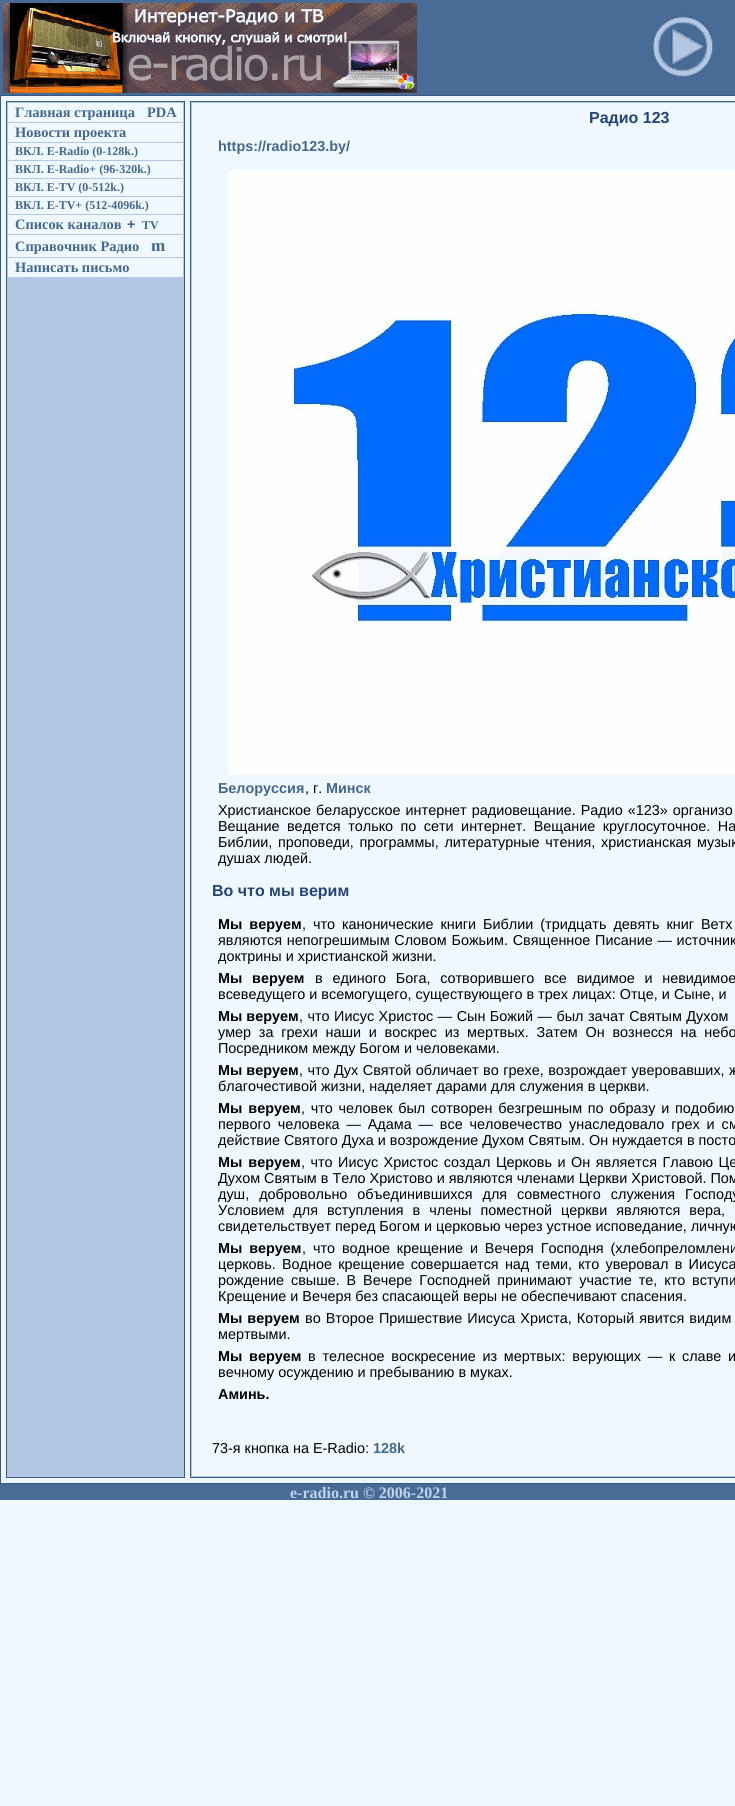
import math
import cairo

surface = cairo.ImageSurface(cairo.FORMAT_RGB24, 735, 1806)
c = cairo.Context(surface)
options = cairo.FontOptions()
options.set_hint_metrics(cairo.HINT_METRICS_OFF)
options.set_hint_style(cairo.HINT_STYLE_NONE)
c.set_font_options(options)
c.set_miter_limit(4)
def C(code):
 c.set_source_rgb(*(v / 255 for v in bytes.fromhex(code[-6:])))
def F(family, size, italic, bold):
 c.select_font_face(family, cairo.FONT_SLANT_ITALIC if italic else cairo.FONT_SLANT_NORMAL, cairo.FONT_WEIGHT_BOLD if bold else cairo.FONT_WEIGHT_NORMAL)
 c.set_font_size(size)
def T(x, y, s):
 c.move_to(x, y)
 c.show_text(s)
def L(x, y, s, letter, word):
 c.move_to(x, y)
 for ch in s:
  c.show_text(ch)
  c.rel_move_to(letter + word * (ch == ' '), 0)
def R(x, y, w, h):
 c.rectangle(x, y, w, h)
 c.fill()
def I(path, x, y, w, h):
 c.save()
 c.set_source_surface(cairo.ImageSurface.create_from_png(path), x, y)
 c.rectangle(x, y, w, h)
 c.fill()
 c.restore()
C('f0f8ff')
c.paint()
C('496c97')
R(0,0,735,95)
I('1.png',3,3,414,90)
I('2.png',651,15,62,63)
c.rectangle(.5,95.5,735,1388)
C('375c7f')
c.set_line_width(1)
c.stroke()
C('b1c7e4')
c.rectangle(6.5,101.5,178,1376)
c.fill_preserve()
C('375c7f')
c.stroke()
C('f0f8ff')
R(8,103,175,19)
F('Liberation Serif',14.4,0,1)
C('44688a')
T(15,117,'Главная страница')
T(147,117,'PDA')
C('f0f8ff')
R(8,123,175,19)
C('44688a')
T(15,137,'Новости проекта')
C('f0f8ff')
R(8,143,175,17)
F('Liberation Serif',12,0,1)
C('44688a')
T(15,155,'ВКЛ. E-Radio (0-128k.)')
C('f0f8ff')
R(8,161,175,17)
C('44688a')
T(15,173,'ВКЛ. E-Radio+ (96-320k.)')
C('f0f8ff')
R(8,179,175,17)
C('44688a')
T(15,191,'ВКЛ. E-TV (0-512k.)')
C('f0f8ff')
R(8,197,175,17)
C('44688a')
T(15,209,'ВКЛ. E-TV+ (512-4096k.)')
C('f0f8ff')
R(8,215,175,19)
F('Liberation Serif',14.4,0,1)
C('44688a')
T(15,229,'Список каналов')
F('Liberation Sans',14.4,0,1)
T(127,229,'+')
F('Liberation Serif',12,0,1)
T(142,229,'TV')
C('f0f8ff')
R(8,235,175,22)
F('Liberation Serif',14.4,0,1)
C('44688a')
T(15,251,'Справочник Радио')
F('Liberation Serif',17,0,1)
T(151,251,'m')
C('f0f8ff')
R(8,258,175,19)
F('Liberation Serif',14.4,0,1)
C('44688a')
T(15,272,'Написать письмо')
C('b1c7e4')
c.rectangle(190.5,101.5,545,1376)
c.fill_preserve()
C('375c7f')
c.stroke()
C('f0f8ff')
R(192,103,543,1373)
F('Liberation Sans',16,0,1)
C('244573')
T(589,123,'Радио 123')
F('Liberation Sans',14.4,0,1)
C('44688a')
T(218,151,'https://radio123.by/')
I('3.png',228,170,507,605)
T(218,793,'Белоруссия')
F('Liberation Sans',14.4,0,0)
C('000000')
T(305,793,', г.')
F('Liberation Sans',14.4,0,1)
C('44688a')
T(326,793,'Минск')
F('Liberation Sans',14.4,0,0)
C('000000')
L(218,815,'Христианское беларусское интернет радиовещание. Радио «123» организо',0,1)
L(218,831,'Вещание ведется только по сети интернет. Вещание круглосуточное. На',0,3.5)
L(218,847,'Библии, проповеди, программы, литературные чтения, христианская музык',0,1.75)
T(218,863,'душах людей.')
F('Liberation Sans',16,0,1)
C('244573')
T(212,896,'Во что мы верим')
F('Liberation Sans',14.4,0,1)
C('000000')
L(218,929,'Мы веруем',0,3)
F('Liberation Sans',14.4,0,0)
L(302,929,', что канонические книги Библии (тридцать девять книг Ветх',0,3)
L(218,945,'являются непогрешимым Словом Божьим. Священное Писание — источник',0,.75)
T(218,961,'доктрины и христианской жизни.')
F('Liberation Sans',14.4,0,1)
L(218,983,'Мы веруем',0,5.75)
F('Liberation Sans',14.4,0,0)
L(315,983,'в единого Бога, сотворившего все видимое и невидимое',0,5.75)
T(218,999,'всеведущего и всемогущего, существующего в трех лицах: Отце, и Сыне, и')
F('Liberation Sans',14.4,0,1)
T(218,1021,'Мы веруем')
F('Liberation Sans',14.4,0,0)
L(299,1021,', что Иисус Христос — Сын Божий — был зачат Святым Духом',0,.5)
L(218,1037,'умер за грехи наши и воскрес из мертвых. Затем Он вознесся на небо',0,3.75)
T(218,1053,'Посредником между Богом и человеками.')
F('Liberation Sans',14.4,0,1)
T(218,1075,'Мы веруем')
F('Liberation Sans',14.4,0,0)
L(299,1075,', что Дух Святой обличает во грехе, возрождает уверовавших, ж',0,.5)
T(218,1091,'благочестивой жизни, наделяет дарами для служения в церкви.')
F('Liberation Sans',14.4,0,1)
L(218,1113,'Мы веруем',0,2)
F('Liberation Sans',14.4,0,0)
L(301,1113,', что человек был сотворен безгрешным по образу и подобию',0,1.75)
L(218,1129,'первого человека — Адама — все человечество унаследовало грех и см',0,2.9)
T(218,1145,'действие Святого Духа и возрождение Духом Святым. Он нуждается в посто')
F('Liberation Sans',14.4,0,1)
L(218,1167,'Мы веруем',0,2)
F('Liberation Sans',14.4,0,0)
L(301,1167,', что Иисус Христос создал Церковь и Он является Главою Це',0,1.5)
T(218,1183,'Духом Святым в Тело Христово и являются членами Церкви Христовой. Пом')
L(218,1199,'душ, добровольно объединившихся для совместного служения Господу',0,6)
L(218,1215,'Условием для вступления в члены поместной церкви являются вера,',0,5)
T(218,1231,'свидетельствует перед Богом и церковью через устное исповедание, личную')
F('Liberation Sans',14.4,0,1)
L(218,1253,'Мы веруем',0,2.9)
F('Liberation Sans',14.4,0,0)
L(302,1253,', что водное крещение и Вечеря Господня (хлебопреломлени',0,2.9)
L(218,1269,'церковь. Водное крещение совершается над теми, кто уверовал в Иисуса',0,2.25)
L(218,1285,'рождение свыше. В Вечере Господней принимают участие те, кто вступи',0,2.9)
T(218,1301,'Крещение и Вечеря без спасающей веры не обеспечивают спасения.')
F('Liberation Sans',14.4,0,1)
L(218,1323,'Мы веруем',0,1)
F('Liberation Sans',14.4,0,0)
L(305,1323,'во Второе Пришествие Иисуса Христа, Который явится видим',0,1)
T(218,1339,'мертвыми.')
F('Liberation Sans',14.4,0,1)
L(218,1361,'Мы веруем',0,2.75)
F('Liberation Sans',14.4,0,0)
L(308,1361,'в телесное воскресение из мертвых: верующих — к славе и',0,2.75)
T(218,1377,'вечному осуждению и пребыванию в муках.')
F('Liberation Sans',14.4,0,1)
T(218,1399,'Аминь.')
F('Liberation Sans',14.4,0,0)
T(212,1453,'73-я кнопка на E-Radio:')
F('Liberation Sans',14.4,0,1)
C('44688a')
T(373,1453,'128k')
C('496c97')
R(0,1484,735,16)
F('Liberation Serif',16,0,1)
C('bed2ec')
T(290,1498,'е-radio.ru © 2006-2021')
surface.write_to_png('o.png')
